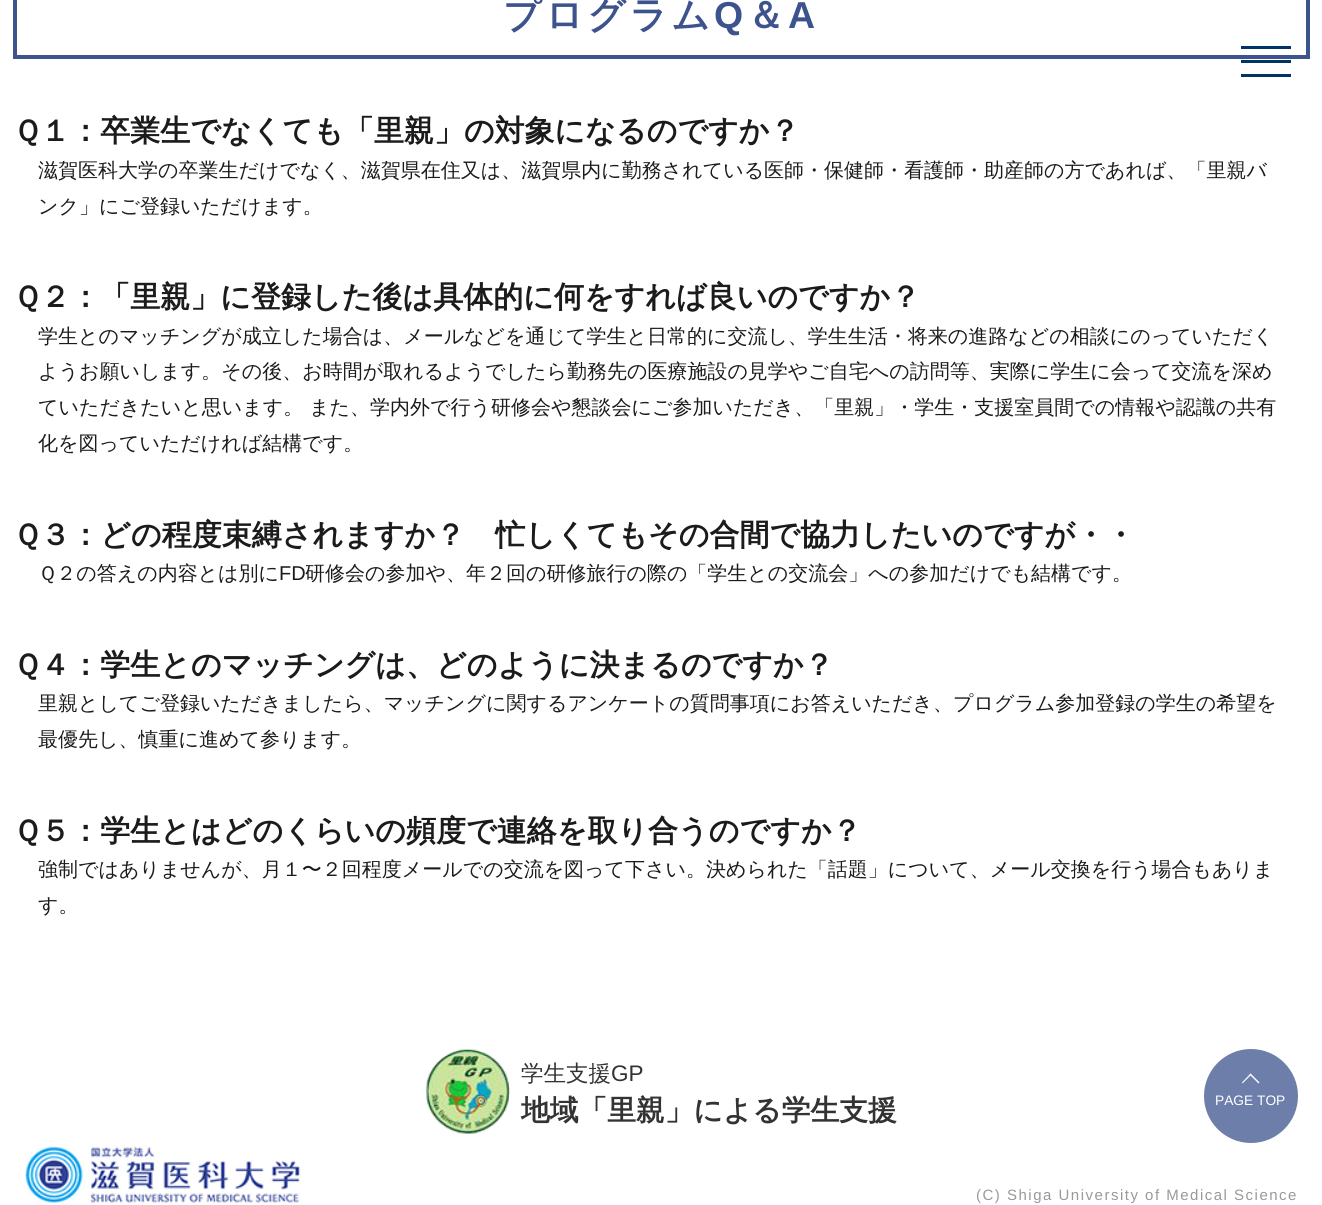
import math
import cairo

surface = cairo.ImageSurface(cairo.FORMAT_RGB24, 1322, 1205)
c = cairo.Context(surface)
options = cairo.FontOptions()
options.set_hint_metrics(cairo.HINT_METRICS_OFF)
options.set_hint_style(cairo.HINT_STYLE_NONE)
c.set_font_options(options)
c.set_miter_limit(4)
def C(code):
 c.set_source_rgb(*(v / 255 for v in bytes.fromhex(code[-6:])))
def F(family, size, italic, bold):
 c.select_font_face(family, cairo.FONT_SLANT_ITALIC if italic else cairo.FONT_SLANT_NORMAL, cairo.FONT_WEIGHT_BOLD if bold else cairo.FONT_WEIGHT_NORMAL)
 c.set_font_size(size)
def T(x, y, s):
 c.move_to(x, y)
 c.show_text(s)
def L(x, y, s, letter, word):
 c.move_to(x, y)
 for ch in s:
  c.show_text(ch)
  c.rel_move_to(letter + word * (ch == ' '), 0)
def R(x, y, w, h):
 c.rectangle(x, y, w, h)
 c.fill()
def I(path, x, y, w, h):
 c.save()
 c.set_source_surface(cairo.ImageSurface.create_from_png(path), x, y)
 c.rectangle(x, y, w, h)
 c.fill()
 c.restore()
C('ffffff')
c.paint()
c.rectangle(15,-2,1293,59)
C('3d538e')
c.set_line_width(4)
c.stroke()
F('WenQuanYi Zen Hei',37.5,0,1)
L(503,28,'プログラム',3.75,0)
F('Liberation Sans',37.5,0,1)
L(714,28,'Q',3.75,0)
F('WenQuanYi Zen Hei',37.5,0,1)
L(747,28,'＆',3.75,0)
F('Liberation Sans',37.5,0,1)
L(788,28,'A',3.75,0)
F('WenQuanYi Zen Hei',30,0,1)
C('1b1b1b')
T(13,141,'Ｑ１：卒業生でなくても「里親」の対象になるのですか？')
F('WenQuanYi Zen Hei Medium',20,0,0)
T(38,177,'滋賀医科大学の卒業生だけでなく、滋賀県在住又は、滋賀県内に勤務されている医師・保健師・看護師・助産師の方であれば、「里親バ')
T(38,213,'ンク」にご登録いただけます。')
F('WenQuanYi Zen Hei',30,0,1)
T(13,307,'Ｑ２：「里親」に登録した後は具体的に何をすれば良いのですか？')
F('WenQuanYi Zen Hei Medium',20,0,0)
T(38,343,'学生とのマッチングが成立した場合は、メールなどを通じて学生と日常的に交流し、学生生活・将来の進路などの相談にのっていただく')
T(38,378,'ようお願いします。その後、お時間が取れるようでしたら勤務先の医療施設の見学やご自宅への訪問等、実際に学生に会って交流を深め')
T(38,414,'ていただきたいと思います。 また、学内外で行う研修会や懇談会にご参加いただき、「里親」・学生・支援室員間での情報や認識の共有')
T(38,450,'化を図っていただければ結構です。')
F('WenQuanYi Zen Hei',30,0,1)
T(13,545,'Ｑ３：どの程度束縛されますか？　忙しくてもその合間で協力したいのですが・・')
F('WenQuanYi Zen Hei Medium',20,0,0)
T(38,580,'Ｑ２の答えの内容とは別に')
F('Liberation Sans',20,0,0)
T(279,580,'FD')
F('WenQuanYi Zen Hei Medium',20,0,0)
T(305,580,'研修会の参加や、年２回の研修旅行の際の「学生との交流会」への参加だけでも結構です。')
F('WenQuanYi Zen Hei',30,0,1)
T(13,675,'Ｑ４：学生とのマッチングは、どのように決まるのですか？')
F('WenQuanYi Zen Hei Medium',20,0,0)
T(38,710,'里親としてご登録いただきましたら、マッチングに関するアンケートの質問事項にお答えいただき、プログラム参加登録の学生の希望を')
T(38,746,'最優先し、慎重に進めて参ります。')
F('WenQuanYi Zen Hei',30,0,1)
T(13,841,'Ｑ５：学生とはどのくらいの頻度で連絡を取り合うのですか？')
F('WenQuanYi Zen Hei Medium',20,0,0)
T(38,876,'強制ではありませんが、月１〜２回程度メールでの交流を図って下さい。決められた「話題」について、メール交換を行う場合もありま')
T(38,912,'す。')
C('003366')
R(1241,60,50,3)
R(1241,46,50,3)
R(1241,74,50,3)
I('1.png',426,1049,84,85)
F('WenQuanYi Zen Hei Medium',22.5,0,0)
C('333333')
T(521,1081,'学生支援')
F('Liberation Sans',22.5,0,0)
T(611,1081,'GP')
F('WenQuanYi Zen Hei',28.75,0,1)
T(521,1120,'地域「里親」による学生支援')
I('2.png',25,1146,276,58)
F('Liberation Sans',15,0,0)
C('999999')
L(976,1200,'(C) Shiga University of Medical Science',1.5,0)
C('6e7eaa')
c.new_path()
c.arc(1251,1096,47,0,2 * math.pi)
c.fill()
C('ffffff')
c.new_path()
c.move_to(1250.5,1073.5)
c.line_to(1259.5,1082.5)
c.line_to(1258.5,1083.5)
c.line_to(1249.5,1074.5)
c.close_path()
c.fill()
c.new_path()
c.move_to(1250.5,1073.5)
c.line_to(1251.5,1074.5)
c.line_to(1242.5,1083.5)
c.line_to(1242,1082.5)
c.close_path()
c.fill()
F('Liberation Sans',13.75,0,0)
T(1215,1105,'PAGE TOP')
surface.write_to_png('o.png')
